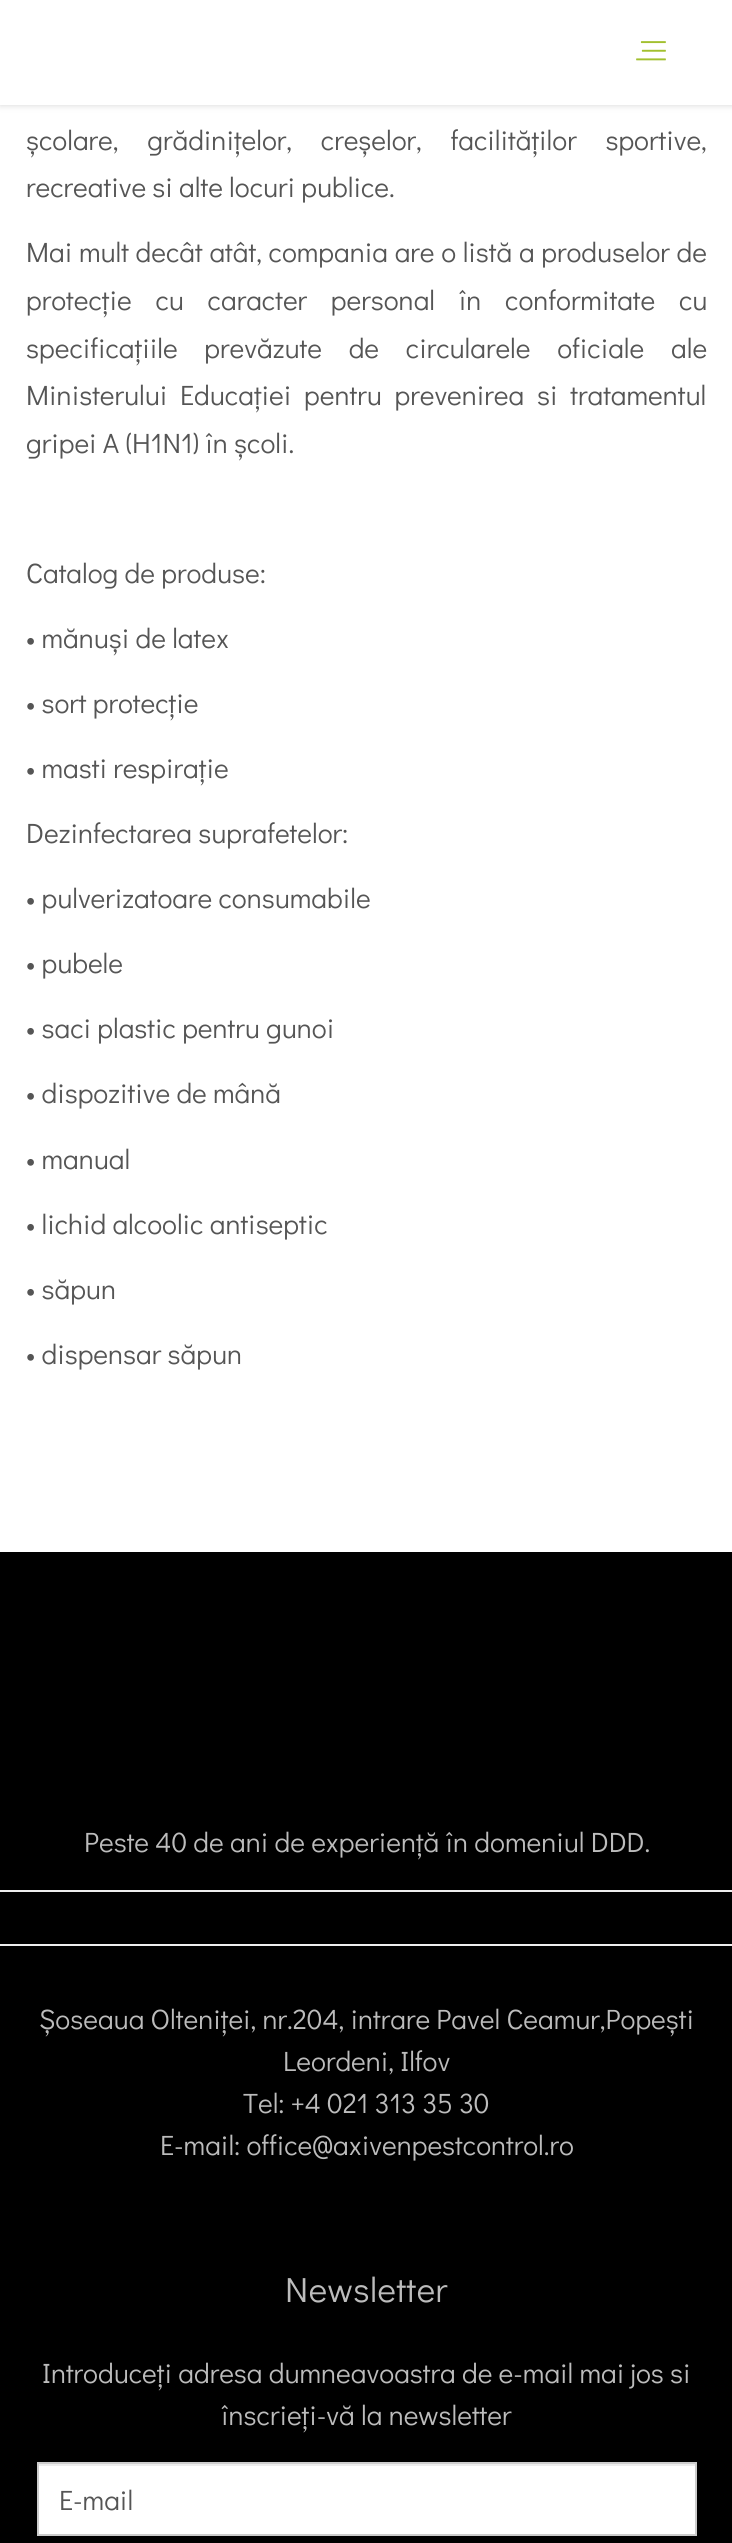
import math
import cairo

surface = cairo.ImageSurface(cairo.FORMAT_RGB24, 732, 2543)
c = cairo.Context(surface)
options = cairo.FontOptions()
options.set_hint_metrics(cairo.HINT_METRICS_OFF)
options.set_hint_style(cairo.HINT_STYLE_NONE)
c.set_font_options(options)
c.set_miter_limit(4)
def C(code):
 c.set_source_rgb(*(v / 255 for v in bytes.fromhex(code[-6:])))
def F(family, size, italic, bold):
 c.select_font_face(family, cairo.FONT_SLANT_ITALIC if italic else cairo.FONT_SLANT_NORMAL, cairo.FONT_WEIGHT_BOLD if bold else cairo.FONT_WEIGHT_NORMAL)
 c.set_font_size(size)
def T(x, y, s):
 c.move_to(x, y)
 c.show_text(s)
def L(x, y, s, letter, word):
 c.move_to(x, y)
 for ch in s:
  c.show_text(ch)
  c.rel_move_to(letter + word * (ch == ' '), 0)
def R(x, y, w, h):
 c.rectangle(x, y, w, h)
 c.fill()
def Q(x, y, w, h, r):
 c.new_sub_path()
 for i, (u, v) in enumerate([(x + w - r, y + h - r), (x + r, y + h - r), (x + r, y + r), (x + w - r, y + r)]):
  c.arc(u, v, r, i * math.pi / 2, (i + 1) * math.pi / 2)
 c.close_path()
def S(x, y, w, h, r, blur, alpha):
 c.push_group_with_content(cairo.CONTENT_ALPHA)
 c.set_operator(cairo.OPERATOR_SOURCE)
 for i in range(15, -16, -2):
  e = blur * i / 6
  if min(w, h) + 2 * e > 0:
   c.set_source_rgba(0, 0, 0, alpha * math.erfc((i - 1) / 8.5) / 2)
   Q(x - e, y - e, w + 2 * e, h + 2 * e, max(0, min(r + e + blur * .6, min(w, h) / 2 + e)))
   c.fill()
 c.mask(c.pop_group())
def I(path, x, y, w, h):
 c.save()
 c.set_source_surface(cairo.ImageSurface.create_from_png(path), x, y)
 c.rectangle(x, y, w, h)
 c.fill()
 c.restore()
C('ffffff')
c.paint()
C('737373')
S(0,0,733,105,0,3.5,.3)
C('ffffff')
R(0,0,732,105)
I('1.png',636,41,30,20)
F('Didact Gothic',28,0,0)
C('555555')
L(26,150,'școlare, grădinițelor, creșelor, facilităților sportive,',0,22.5)
T(26,197,'recreative si alte locuri publice.')
L(26,262,'Mai mult decât atât, compania are o listă a produselor de',0,.4)
L(26,310,'protecție cu caracter personal în conformitate cu',0,17.5)
L(26,358,'specificațiile prevăzute de circularele oficiale ale',0,20.5)
L(26,405,'Ministerului Educației pentru prevenirea si tratamentul',0,6.5)
T(26,453,'gripei A (H1N1) în școli.')
T(26,583,'Catalog de produse:')
T(26,648,'• mănuși de latex')
T(26,713,'• sort protecție')
T(26,778,'• masti respirație')
T(26,843,'Dezinfectarea suprafetelor:')
T(26,908,'• pulverizatoare consumabile')
T(26,973,'• pubele')
T(26,1038,'• saci plastic pentru gunoi')
T(26,1103,'• dispozitive de mână')
T(26,1169,'• manual')
T(26,1234,'• lichid alcoolic antiseptic')
T(26,1299,'• săpun')
T(26,1364,'• dispensar săpun')
C('000000')
R(0,1552,732,991)
C('bcbcbc')
T(84,1852,'Peste 40 de ani de experiență în domeniul DDD.')
C('eeeeee')
R(0,1890,732,2)
R(0,1944,732,2)
C('bcbcbc')
T(39,2029,'Șoseaua Olteniței, nr.204, intrare Pavel Ceamur,Popești')
T(283,2071,'Leordeni, Ilfov')
T(243,2113,'Tel: +4 021 313 35 30')
T(160,2155,'E-mail: office@axivenpestcontrol.ro')
F('Didact Gothic',35,0,0)
L(285,2302,'Newsletter',.5,0)
F('Didact Gothic',28,0,0)
T(42,2383,'Introduceți adresa dumneavoastra de e-mail mai jos si')
T(221,2425,'înscrieți-vă la newsletter')
C('ffffff')
R(39,2466,656,68)
C('ececec')
R(39,2464,656,2)
c.rectangle(38,2463,658,72)
C('cccccc')
c.stroke()
C('555555')
T(59,2510,'E-mail')
surface.write_to_png('o.png')
